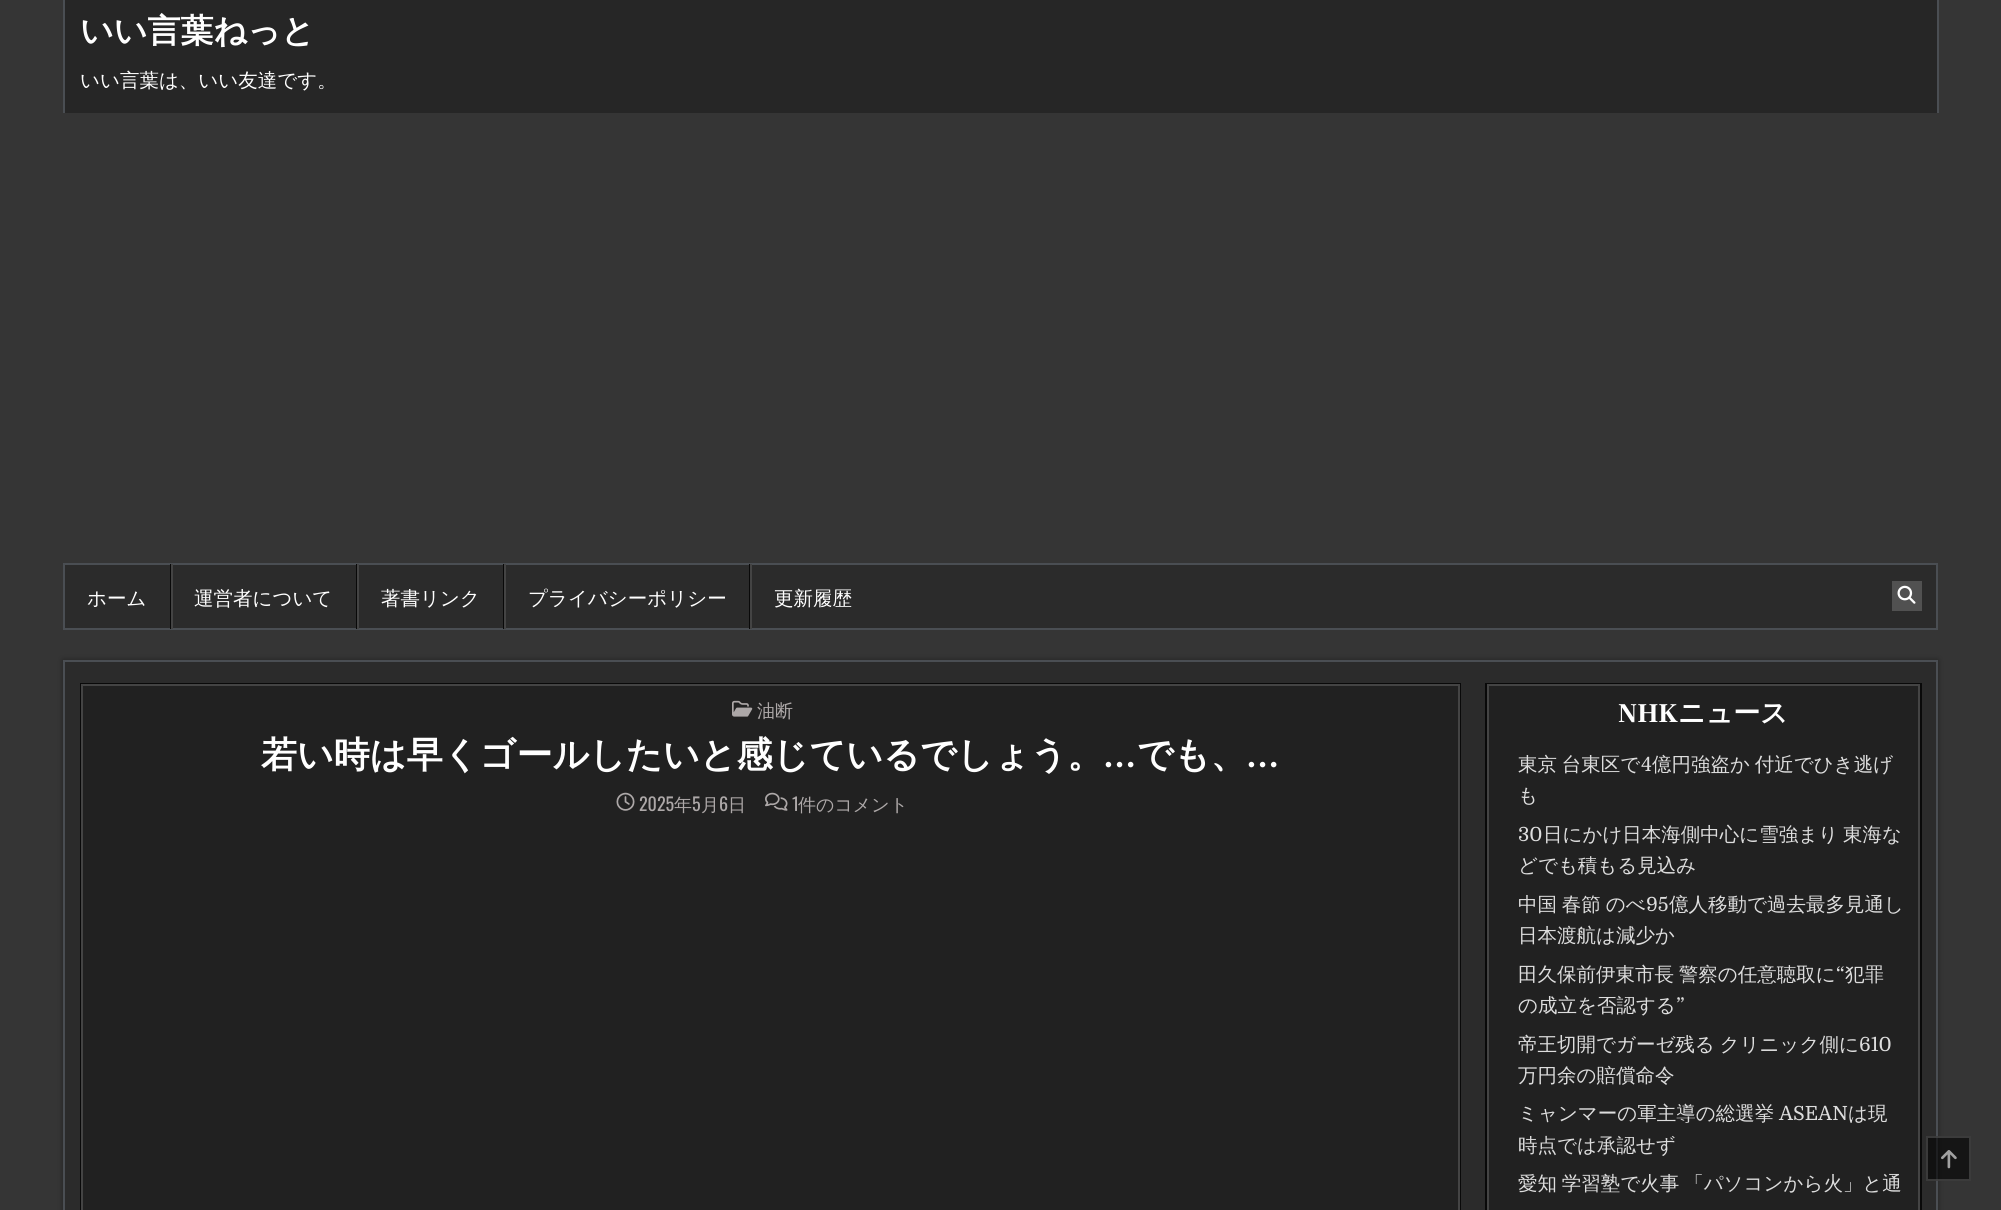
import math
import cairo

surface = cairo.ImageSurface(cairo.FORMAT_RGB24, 2001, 1210)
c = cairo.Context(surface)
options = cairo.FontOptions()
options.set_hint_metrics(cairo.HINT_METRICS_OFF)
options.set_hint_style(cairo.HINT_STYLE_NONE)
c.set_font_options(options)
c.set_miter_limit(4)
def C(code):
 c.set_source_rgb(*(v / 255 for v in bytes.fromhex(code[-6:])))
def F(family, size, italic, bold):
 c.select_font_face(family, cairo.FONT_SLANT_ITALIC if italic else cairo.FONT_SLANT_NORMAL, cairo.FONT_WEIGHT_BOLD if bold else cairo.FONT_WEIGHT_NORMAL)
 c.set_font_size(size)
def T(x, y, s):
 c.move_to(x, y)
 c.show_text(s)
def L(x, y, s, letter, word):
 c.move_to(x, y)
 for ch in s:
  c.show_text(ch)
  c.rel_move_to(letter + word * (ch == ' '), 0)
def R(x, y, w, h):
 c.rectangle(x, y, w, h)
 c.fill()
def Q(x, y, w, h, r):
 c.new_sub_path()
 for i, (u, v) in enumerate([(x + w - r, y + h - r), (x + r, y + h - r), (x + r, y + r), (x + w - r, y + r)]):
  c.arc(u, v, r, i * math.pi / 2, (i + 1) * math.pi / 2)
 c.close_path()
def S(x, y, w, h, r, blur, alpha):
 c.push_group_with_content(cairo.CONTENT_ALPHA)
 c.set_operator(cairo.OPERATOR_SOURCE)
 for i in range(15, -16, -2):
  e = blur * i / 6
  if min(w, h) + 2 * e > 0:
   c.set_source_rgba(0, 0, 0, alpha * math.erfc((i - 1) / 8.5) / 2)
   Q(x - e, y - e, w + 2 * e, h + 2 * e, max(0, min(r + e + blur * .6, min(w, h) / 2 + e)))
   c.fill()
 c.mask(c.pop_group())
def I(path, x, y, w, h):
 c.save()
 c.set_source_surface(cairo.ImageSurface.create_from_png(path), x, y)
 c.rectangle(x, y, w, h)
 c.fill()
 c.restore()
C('353535')
c.paint()
C('262626')
R(65,0,1872,113)
C('4a4e53')
R(1937,0,2,113)
R(63,0,2,113)
F('WenQuanYi Zen Hei',33,0,1)
C('ffffff')
T(80,42,'いい言葉ねっと')
F('WenQuanYi Zen Hei Medium',19.5,0,0)
T(80,87,'いい言葉は、いい友達です。')
C('2b2b2b')
c.rectangle(64,564,1873,65)
c.fill_preserve()
C('4a4e53')
c.stroke()
C('090909')
R(170,564,1,65)
C('ffffff')
T(87,605,'ホーム')
C('090909')
R(356,564,1,65)
C('444444')
R(171,564,2,65)
C('ffffff')
T(194,605,'運営者について')
C('090909')
R(503,564,1,65)
C('444444')
R(357,564,2,65)
C('ffffff')
T(381,605,'著書リンク')
C('090909')
R(749,564,1,65)
C('444444')
R(504,564,2,65)
C('ffffff')
T(528,605,'プライバシーポリシー')
C('444444')
R(750,564,2,65)
C('ffffff')
T(774,605,'更新履歴')
C('515151')
R(1892,581,30,30)
I('1.png',1897,585,19,19)
C('000000')
S(63,660,1875,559,0,3,.35)
C('2b2b2b')
c.rectangle(64,661,1873,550)
c.fill_preserve()
C('4a4e53')
c.stroke()
C('212121')
R(83,686,1375,524)
c.rectangle(81,684,1379,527)
C('090909')
c.stroke()
c.rectangle(82,685,1377,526)
C('444444')
c.stroke()
I('2.png',732,700,21,17)
F('WenQuanYi Zen Hei Medium',18,0,0)
C('ada8a8')
T(757,717,'油断')
F('WenQuanYi Zen Hei',36,0,1)
C('ffffff')
T(261,767,'若い時は早くゴールしたいと感じているでしょう。')
F('Frank Ruhl Libre',36,0,1)
T(1103,767,'…')
F('WenQuanYi Zen Hei',36,0,1)
T(1137,767,'でも、')
F('Frank Ruhl Libre',36,0,1)
T(1246,767,'…')
I('3.png',616,792,19,19)
F('Oswald',18,0,0)
C('ada8a8')
T(639,811,'2025')
F('WenQuanYi Zen Hei Medium',18,0,0)
T(674,811,'年')
F('Oswald',18,0,0)
T(692,811,'5')
F('WenQuanYi Zen Hei Medium',18,0,0)
T(701,811,'月')
F('Oswald',18,0,0)
T(719,811,'6')
F('WenQuanYi Zen Hei Medium',18,0,0)
T(728,811,'日')
I('4.png',765,792,23,19)
F('Oswald',18,0,0)
T(792,811,'1')
F('WenQuanYi Zen Hei Medium',18,0,0)
T(798,811,'件のコメント')
C('212121')
R(1489,686,429,524)
c.rectangle(1486,684,435,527)
C('090909')
c.stroke()
c.rectangle(1488,685,431,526)
C('444444')
c.stroke()
F('Frank Ruhl Libre',27,0,1)
C('ffffff')
T(1618,722,'NHK')
F('WenQuanYi Zen Hei',27,0,1)
T(1678,722,'ニュース')
F('WenQuanYi Zen Hei Medium',19.5,0,0)
C('dddddd')
L(1518,771,'東京 台東区で',0,-1)
F('Domine',19.5,0,0)
T(1641,771,'4')
F('WenQuanYi Zen Hei Medium',19.5,0,0)
L(1652,771,'億円強盗か 付近でひき逃げ',0,-1)
T(1518,802,'も')
F('Domine',19.5,0,0)
T(1518,841,'30')
F('WenQuanYi Zen Hei Medium',19.5,0,0)
L(1543,841,'日にかけ日本海側中心に雪強まり 東海な',0,-1)
T(1518,872,'どでも積もる見込み')
L(1518,911,'中国 春節 のべ',0,-1)
F('Domine',19.5,0,0)
T(1646,911,'95')
F('WenQuanYi Zen Hei Medium',19.5,0,0)
T(1669,911,'億人移動で過去最多見通し')
T(1518,942,'日本渡航は減少か')
L(1518,981,'田久保前伊東市長 警察の任意聴取に',0,-1)
F('Domine',19.5,0,0)
T(1836,981,'“')
F('WenQuanYi Zen Hei Medium',19.5,0,0)
T(1845,981,'犯罪')
T(1518,1012,'の成立を否認する')
F('Domine',19.5,0,0)
T(1676,1012,'”')
F('WenQuanYi Zen Hei Medium',19.5,0,0)
L(1518,1051,'帝王切開でガーゼ残る クリニック側に',0,-1)
F('Domine',19.5,0,0)
T(1859,1051,'610')
F('WenQuanYi Zen Hei Medium',19.5,0,0)
T(1518,1082,'万円余の賠償命令')
T(1518,1120,'ミャンマーの軍主導の総選挙')
F('Domine',19.5,0,0)
T(1779,1120,'ASEAN')
F('WenQuanYi Zen Hei Medium',19.5,0,0)
T(1848,1120,'は現')
T(1518,1152,'時点では承認せず')
L(1518,1190,'愛知 学習塾で火事 「パソコンから火」と通',0,-1)
c.set_source_rgba(0,0,0,0.6)
R(1926,1136,45,45)
c.rectangle(1927,1137,43,43)
c.set_source_rgba(0.333,0.333,0.333,0.6)
c.stroke()
I('5.png',1941,1150,16,19)
surface.write_to_png('o.png')
